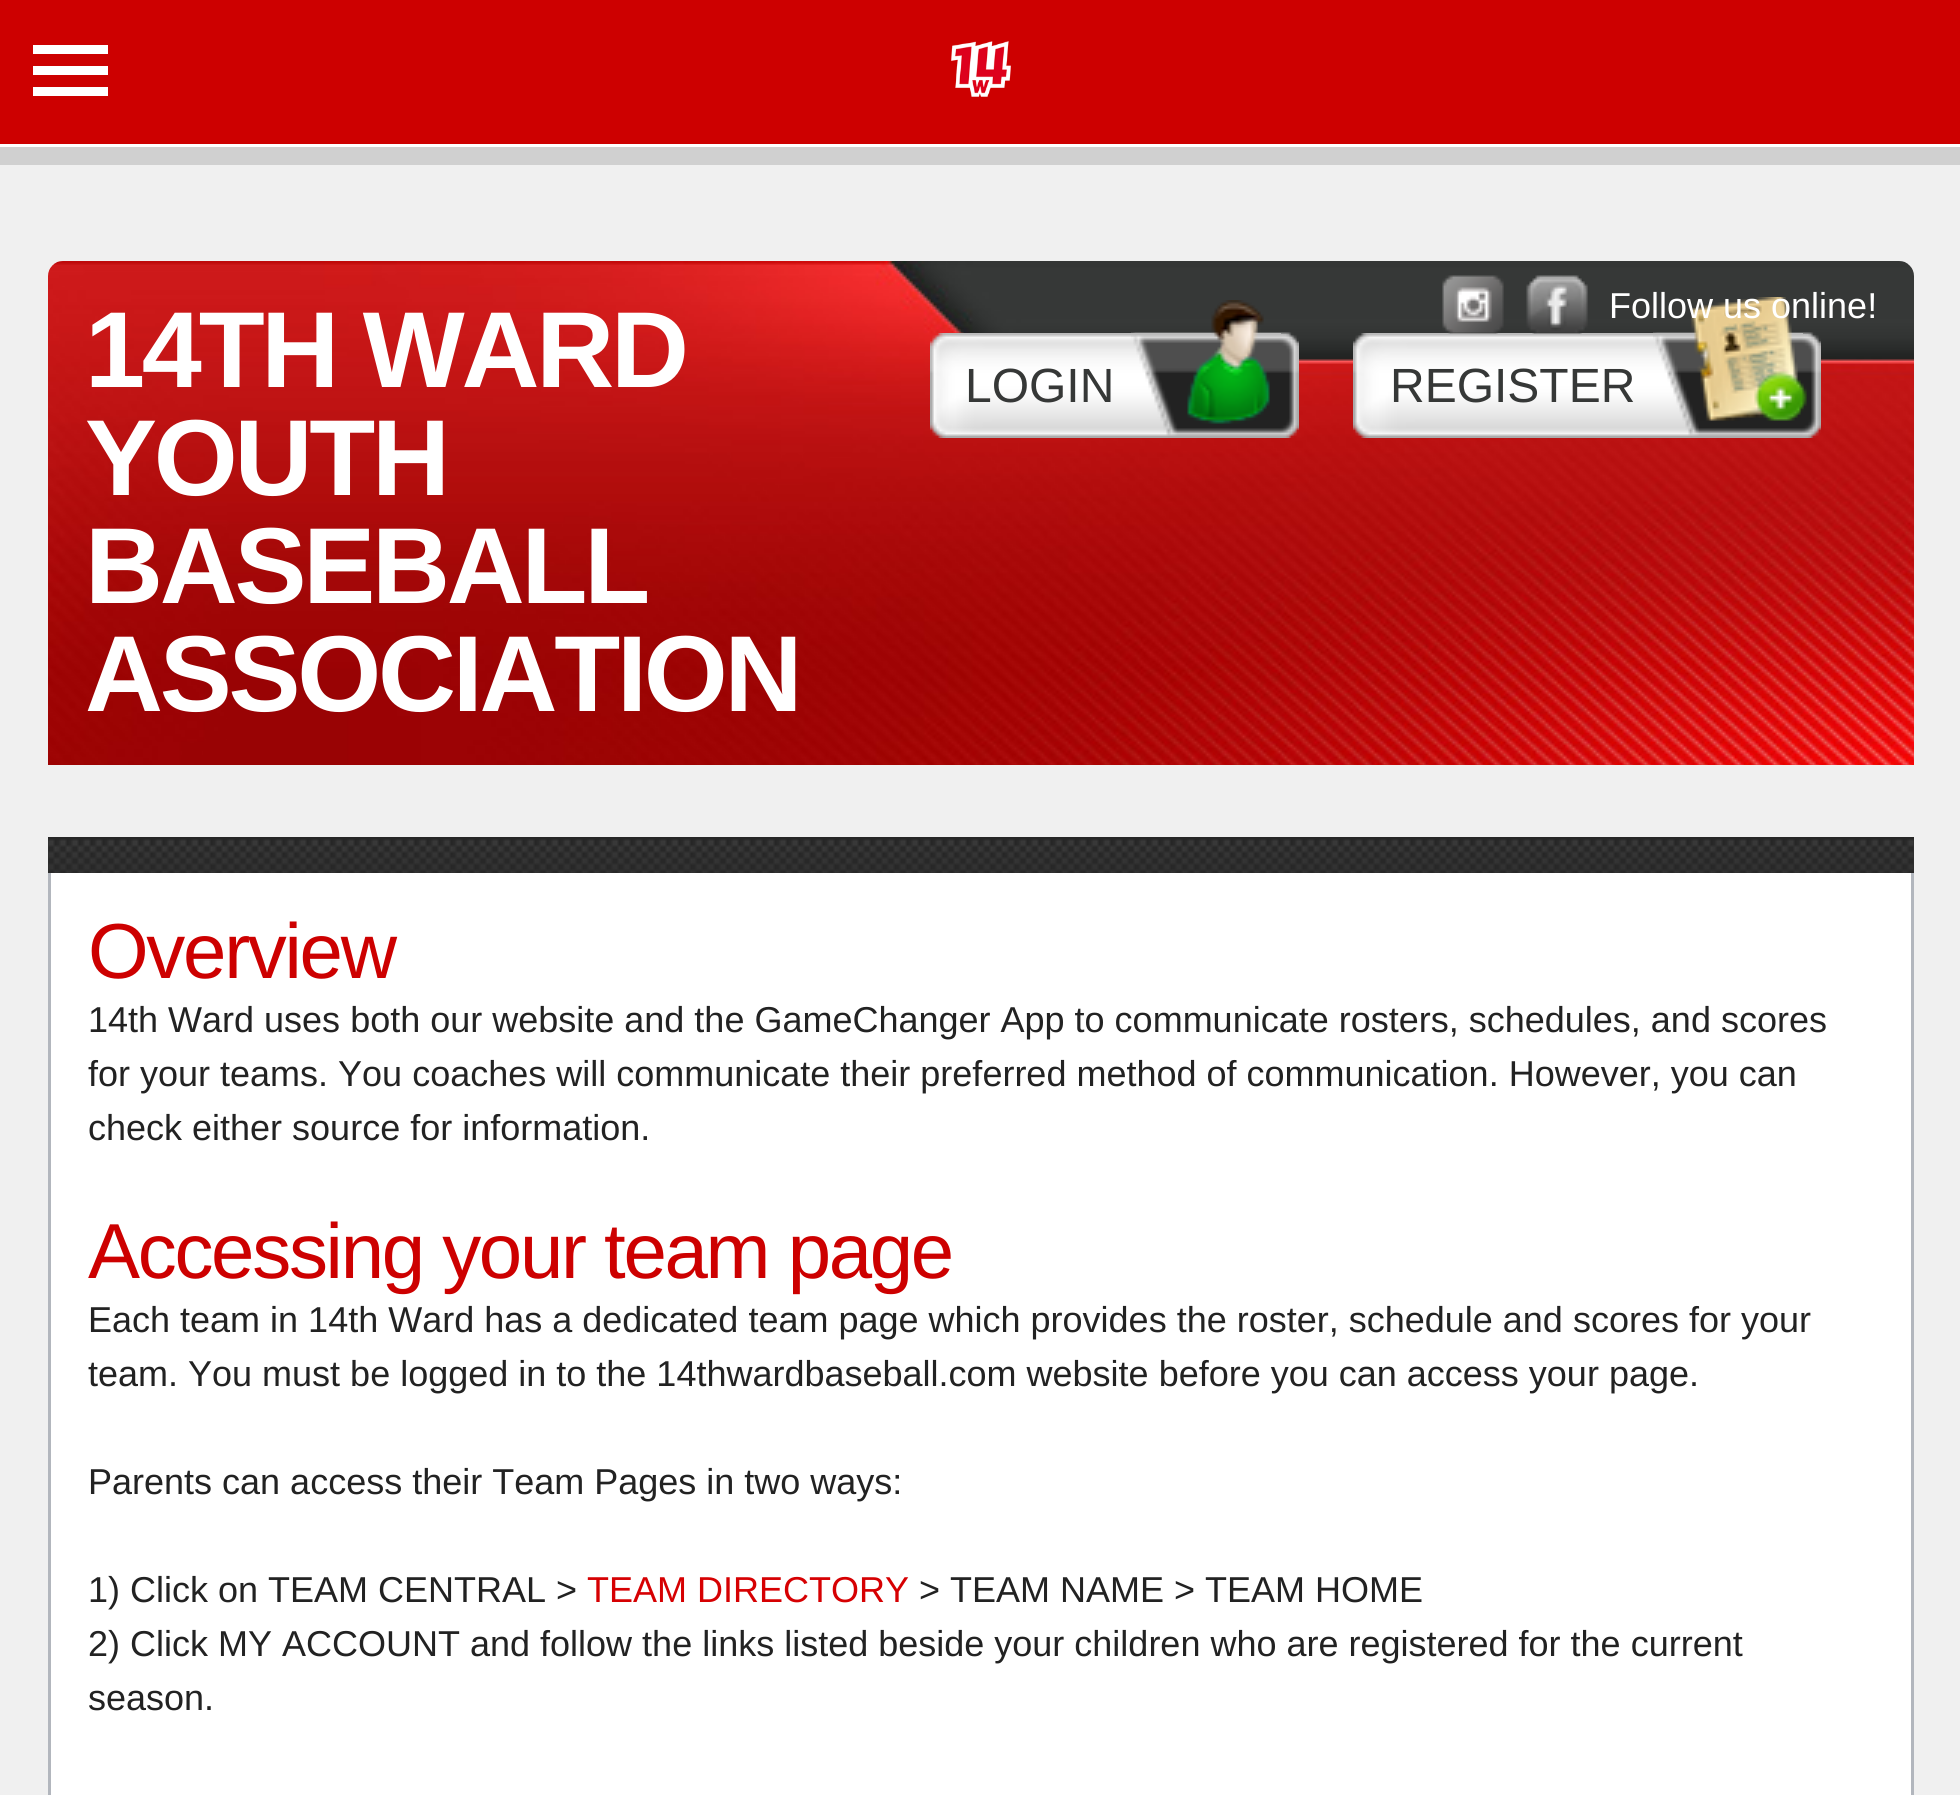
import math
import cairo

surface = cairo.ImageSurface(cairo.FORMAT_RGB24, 1960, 1795)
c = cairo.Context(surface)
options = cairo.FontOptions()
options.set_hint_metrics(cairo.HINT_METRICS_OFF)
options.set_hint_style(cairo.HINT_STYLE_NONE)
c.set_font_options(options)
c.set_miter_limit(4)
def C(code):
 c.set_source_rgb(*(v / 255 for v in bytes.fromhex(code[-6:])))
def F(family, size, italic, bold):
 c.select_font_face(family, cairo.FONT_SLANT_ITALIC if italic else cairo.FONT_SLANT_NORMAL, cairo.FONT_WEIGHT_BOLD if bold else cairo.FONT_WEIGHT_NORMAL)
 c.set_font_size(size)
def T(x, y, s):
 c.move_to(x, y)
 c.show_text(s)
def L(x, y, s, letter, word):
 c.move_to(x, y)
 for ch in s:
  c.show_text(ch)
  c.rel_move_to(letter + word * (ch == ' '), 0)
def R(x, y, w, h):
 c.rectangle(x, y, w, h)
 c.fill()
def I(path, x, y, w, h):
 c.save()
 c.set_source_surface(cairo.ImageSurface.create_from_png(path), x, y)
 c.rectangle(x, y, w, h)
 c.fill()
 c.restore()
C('f0f0f0')
c.paint()
C('cd0000')
R(0,0,1960,144)
C('ffffff')
R(0,144,1960,3)
c.new_path()
c.move_to(33,45)
c.line_to(108,45)
c.line_to(108,54)
c.line_to(33,54)
c.close_path()
c.move_to(33,66)
c.line_to(108,66)
c.line_to(108,75)
c.line_to(33,75)
c.close_path()
c.move_to(33,87)
c.line_to(108,87)
c.line_to(108,96)
c.line_to(33,96)
c.close_path()
c.fill()
I('1.png',951,41,60,56)
C('d0d0d0')
R(0,147,1960,18)
I('2.png',48,261,1866,504)
I('7.png',1353,333,450,105)
I('3.png',1442,275,62,59)
I('4.png',1526,275,62,59)
I('8.png',1653,297,168,141)
F('Liberation Sans',36,0,0)
C('ffffff')
T(1609,318,'Follow us online!')
F('Liberation Sans',108,0,1)
L(85,387,'14TH WARD',-3.25,0)
L(85,495,'YOUTH',-3.25,0)
L(85,603,'BASEBALL',-3.25,0)
L(85,711,'ASSOCIATION',-3.25,0)
I('5.png',930,333,351,105)
I('6.png',1131,300,168,138)
F('Liberation Sans',48,0,0)
C('363837')
T(965,402,'LOGIN')
T(1390,402,'REGISTER')
C('272727')
R(48,837,1866,2)
I('9.png',48,839,1866,34)
C('ffffff')
R(51,873,1860,922)
C('b2b6bd')
R(1911,873,3,922)
R(48,873,3,922)
F('Liberation Sans',78,0,0)
C('cd0000')
L(88,978,'Overview',-2.3,0)
F('Liberation Sans',36,0,0)
C('222222')
T(88,1032,'14th Ward uses both our website and the GameChanger App to communicate rosters, schedules, and scores')
T(88,1086,'for your teams. You coaches will communicate their preferred method of communication. However, you can')
T(88,1140,'check either source for information.')
F('Liberation Sans',78,0,0)
C('cd0000')
L(88,1278,'Accessing your team page',-2.3,0)
F('Liberation Sans',36,0,0)
C('222222')
T(88,1332,'Each team in 14th Ward has a dedicated team page which provides the roster, schedule and scores for your')
T(88,1386,'team. You must be logged in to the 14thwardbaseball.com website before you can access your page.')
T(88,1494,'Parents can access their Team Pages in two ways:')
T(88,1602,'1) Click on TEAM CENTRAL >')
C('d60002')
T(587,1602,'TEAM DIRECTORY')
C('222222')
T(919,1602,'> TEAM NAME > TEAM HOME')
T(88,1656,'2) Click MY ACCOUNT and follow the links listed beside your children who are registered for the current')
T(88,1710,'season.')
surface.write_to_png('o.png')
